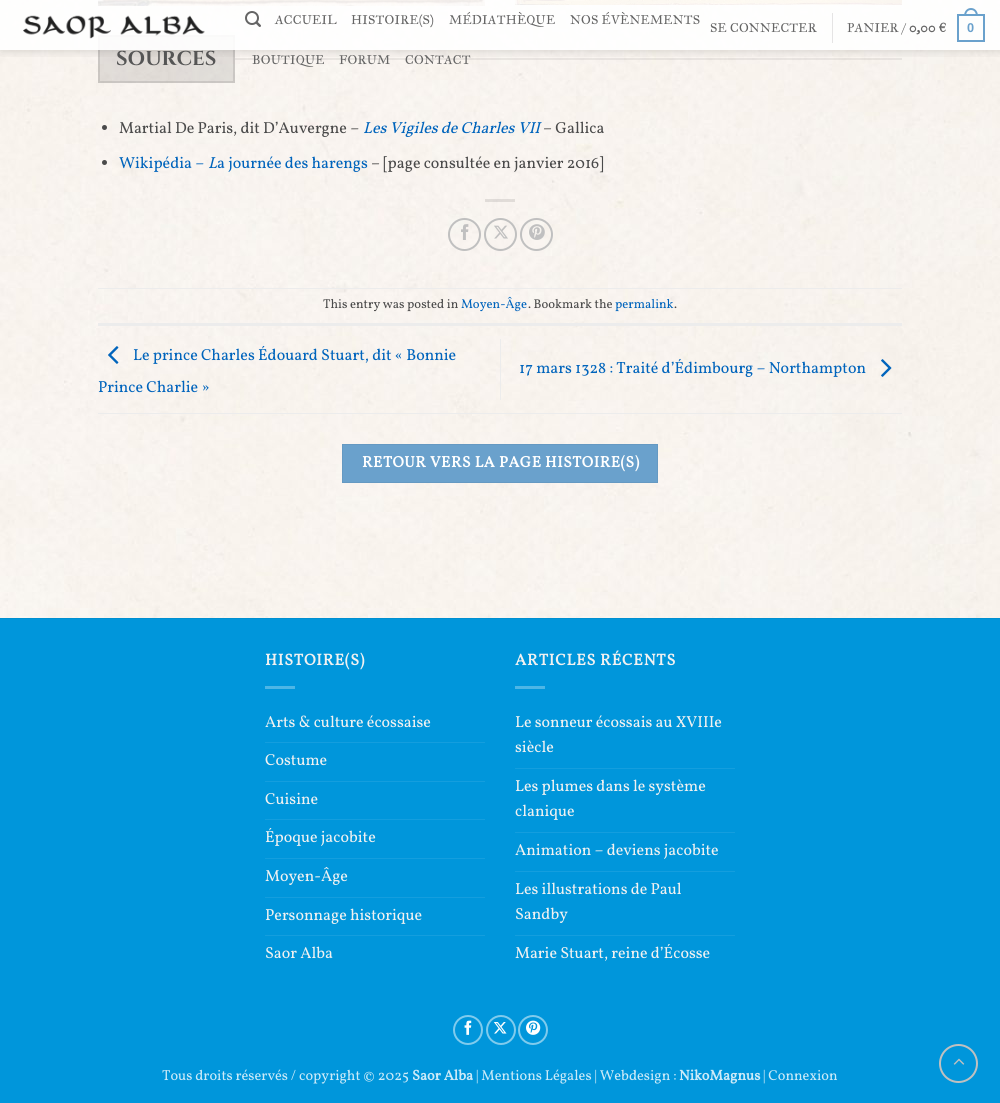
import math
import cairo

surface = cairo.ImageSurface(cairo.FORMAT_RGB24, 1000, 1103)
c = cairo.Context(surface)
options = cairo.FontOptions()
options.set_hint_metrics(cairo.HINT_METRICS_OFF)
options.set_hint_style(cairo.HINT_STYLE_NONE)
c.set_font_options(options)
c.set_miter_limit(4)
def C(code):
 c.set_source_rgb(*(v / 255 for v in bytes.fromhex(code[-6:])))
def F(family, size, italic, bold):
 c.select_font_face(family, cairo.FONT_SLANT_ITALIC if italic else cairo.FONT_SLANT_NORMAL, cairo.FONT_WEIGHT_BOLD if bold else cairo.FONT_WEIGHT_NORMAL)
 c.set_font_size(size)
def T(x, y, s):
 c.move_to(x, y)
 c.show_text(s)
def L(x, y, s, letter, word):
 c.move_to(x, y)
 for ch in s:
  c.show_text(ch)
  c.rel_move_to(letter + word * (ch == ' '), 0)
def R(x, y, w, h):
 c.rectangle(x, y, w, h)
 c.fill()
def Q(x, y, w, h, r):
 c.new_sub_path()
 for i, (u, v) in enumerate([(x + w - r, y + h - r), (x + r, y + h - r), (x + r, y + r), (x + w - r, y + r)]):
  c.arc(u, v, r, i * math.pi / 2, (i + 1) * math.pi / 2)
 c.close_path()
def S(x, y, w, h, r, blur, alpha):
 c.push_group_with_content(cairo.CONTENT_ALPHA)
 c.set_operator(cairo.OPERATOR_SOURCE)
 for i in range(15, -16, -2):
  e = blur * i / 6
  if min(w, h) + 2 * e > 0:
   c.set_source_rgba(0, 0, 0, alpha * math.erfc((i - 1) / 8.5) / 2)
   Q(x - e, y - e, w + 2 * e, h + 2 * e, max(0, min(r + e + blur * .6, min(w, h) / 2 + e)))
   c.fill()
 c.mask(c.pop_group())
def I(path, x, y, w, h):
 c.save()
 c.set_source_surface(cairo.ImageSurface.create_from_png(path), x, y)
 c.rectangle(x, y, w, h)
 c.fill()
 c.restore()
C('ffffff')
c.paint()
I('3.png',0,0,1000,618)
I('4.png',98,0,387,6)
I('5.png',515,0,387,5)
c.set_source_rgba(0,0,0,0.1)
R(98,35,137,48)
c.rectangle(99,36,135,46)
c.stroke()
c.set_source_rgba(0.333,0.333,0.333,0.1)
R(235,58,667,2)
c.save()
c.rectangle(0,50,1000,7)
c.clip()
C('000000')
S(1,1,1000,50,0,5,.15)
c.restore()
c.set_source_rgba(1,1,1,0.9)
R(0,0,1000,50)
I('1.png',23,15,182,24)
I('2.png',245,11,16,16)
F('IM FELL Great Primer',12.75,0,0)
C('656565')
L(275,24,'ACCUEIL',.25,0)
L(351,24,'HISTOIRE(S)',.25,0)
L(449,24,'MÉDIATHÈQUE',.25,0)
L(570,24,'NOS ÉVÈNEMENTS',.25,0)
L(252,64,'BOUTIQUE',.25,0)
L(339,64,'FORUM',.25,0)
L(405,64,'CONTACT',.25,0)
L(710,32,'SE CONNECTER',.25,0)
C('e5e4e4')
R(832,13,1,30)
C('656565')
L(847,32,'PANIER /',.25,0)
F('IM FELL Great Primer',12.75,0,1)
L(909,32,'0,00 €',.25,0)
c.rectangle(958,15,26,26)
C('6aa1cc')
c.stroke()
c.set_fill_rule(cairo.FILL_RULE_EVEN_ODD)
c.new_path()
c.move_to(971,8)
c.curve_to(975.5,8,978,12,978,16)
c.line_to(964,16)
c.curve_to(964,12,966.5,8,971,8)
c.close_path()
c.move_to(971,10)
c.curve_to(974.5,10,976,13,976,16)
c.line_to(966,16)
c.curve_to(966,13,967.5,10,971,10)
c.close_path()
c.fill()
F('Liberation Sans',12.75,0,1)
L(967,32,'0',.25,0)
F('Cinzel',20,0,1)
C('555555')
T(116,65,'SOURCES')
C('4a4a4a')
c.new_path()
c.arc(104.5,127.5,2.5,0,2 * math.pi)
c.fill()
F('Vollkorn',16,0,0)
T(119,133,'Martial De Paris, dit D’Auvergne –')
F('Vollkorn',16,1,0)
C('0064bc')
T(363,133,'Les Vigiles de Charles VII')
F('Vollkorn',16,0,0)
C('4a4a4a')
T(543,133,'– Gallica')
c.new_path()
c.arc(104.5,162.5,2.5,0,2 * math.pi)
c.fill()
C('0064bc')
T(119,168,'Wikipédia –')
F('Vollkorn',16,1,0)
T(208,168,'L')
F('Vollkorn',16,0,0)
T(217,168,'a journée des harengs')
C('4a4a4a')
T(371,168,'– [page consultée en janvier 2016]')
c.set_source_rgba(0,0,0,0.1)
R(485,199,30,3)
c.new_path()
c.arc(464.5,234.5,15.5,0,2 * math.pi)
C('c0c0c0')
c.stroke()
I('6.png',461,224,8,16)
c.arc(500.5,234.5,15.5,0,2 * math.pi)
c.stroke()
I('7.png',494,225,14,14)
c.arc(536.5,234.5,15.5,0,2 * math.pi)
c.stroke()
I('8.png',529,224,16,16)
C('ececec')
R(98,288,804,1)
R(98,323,804,3)
F('Vollkorn',12.75,0,0)
C('4a4a4a')
T(323,308,'This entry was posted in')
C('0064bc')
T(461,308,'Moyen-Âge')
C('4a4a4a')
T(528,308,'. Bookmark the')
C('0064bc')
T(615,308,'permalink')
C('4a4a4a')
T(674,308,'.')
C('ececec')
R(98,413,804,1)
I('9.png',108,346,11,18)
F('Vollkorn',16,0,0)
C('0064bc')
T(133,360,'Le prince Charles Édouard Stuart, dit « Bonnie')
T(98,392,'Prince Charlie »')
C('ececec')
R(500,339,1,61)
C('0064bc')
T(519,373,'17 mars 1328 : Traité d’Édimbourg – Northampton')
I('10.png',881,359,11,18)
C('6aa1cc')
c.rectangle(342.5,444.5,315,38)
c.fill_preserve()
C('6599c2')
c.set_line_width(1)
c.stroke()
F('Vollkorn',15.5,0,1)
C('ffffff')
L(362,467,'RETOUR VERS LA PAGE HISTOIRE(S)',.5,0)
C('0096db')
R(0,619,1000,484)
C('008fd0')
R(0,618,1000,1)
F('Vollkorn',16,0,1)
C('f1f1f1')
L(265,665,'HISTOIRE(S)',.75,0)
C('4db6e6')
R(265,686,30,3)
F('Vollkorn',16,0,0)
C('f1f1f1')
T(265,727,'Arts & culture écossaise')
C('149ede')
R(265,742,220,1)
C('f1f1f1')
T(265,765,'Costume')
C('149ede')
R(265,781,220,1)
C('f1f1f1')
T(265,804,'Cuisine')
C('149ede')
R(265,819,220,1)
C('f1f1f1')
T(265,842,'Époque jacobite')
C('149ede')
R(265,858,220,1)
C('f1f1f1')
T(265,881,'Moyen-Âge')
C('149ede')
R(265,897,220,1)
C('f1f1f1')
T(265,920,'Personnage historique')
C('149ede')
R(265,935,220,1)
C('f1f1f1')
T(265,958,'Saor Alba')
F('Vollkorn',16,0,1)
L(515,665,'ARTICLES RÉCENTS',.75,0)
C('4db6e6')
R(515,686,30,3)
F('Vollkorn',16,0,0)
C('f1f1f1')
T(515,727,'Le sonneur écossais au XVIIIe')
T(515,752,'siècle')
C('149ede')
R(515,768,220,1)
C('f1f1f1')
T(515,791,'Les plumes dans le système')
T(515,816,'clanique')
C('149ede')
R(515,832,220,1)
C('f1f1f1')
T(515,855,'Animation – deviens jacobite')
C('149ede')
R(515,871,220,1)
C('f1f1f1')
T(515,894,'Les illustrations de Paul')
T(515,919,'Sandby')
C('149ede')
R(515,935,220,1)
C('f1f1f1')
T(515,958,'Marie Stuart, reine d’Écosse')
c.new_path()
c.arc(468,1030,14,0,2 * math.pi)
C('80cbed')
c.set_line_width(2)
c.stroke()
I('11.png',464,1020,8,15)
c.arc(501,1030,14,0,2 * math.pi)
c.stroke()
I('12.png',493,1022,14,12)
c.arc(533,1030,14,0,2 * math.pi)
c.stroke()
I('13.png',526,1020,15,15)
F('Vollkorn',14.4,0,0)
C('cceaf8')
T(162,1080,'Tous droits réservés / copyright © 2025')
F('Vollkorn',14.4,0,1)
T(412,1080,'Saor Alba')
F('Vollkorn',14.4,0,0)
T(476,1080,'| Mentions Légales | Webdesign :')
F('Vollkorn',14.4,0,1)
T(679,1080,'NikoMagnus')
F('Vollkorn',14.4,0,0)
T(763,1080,'| Connexion')
c.new_path()
c.arc(958.5,1063.5,18.5,0,2 * math.pi)
C('c0c0c0')
c.stroke()
I('14.png',953,1058,12,7)
surface.write_to_png('o.png')
